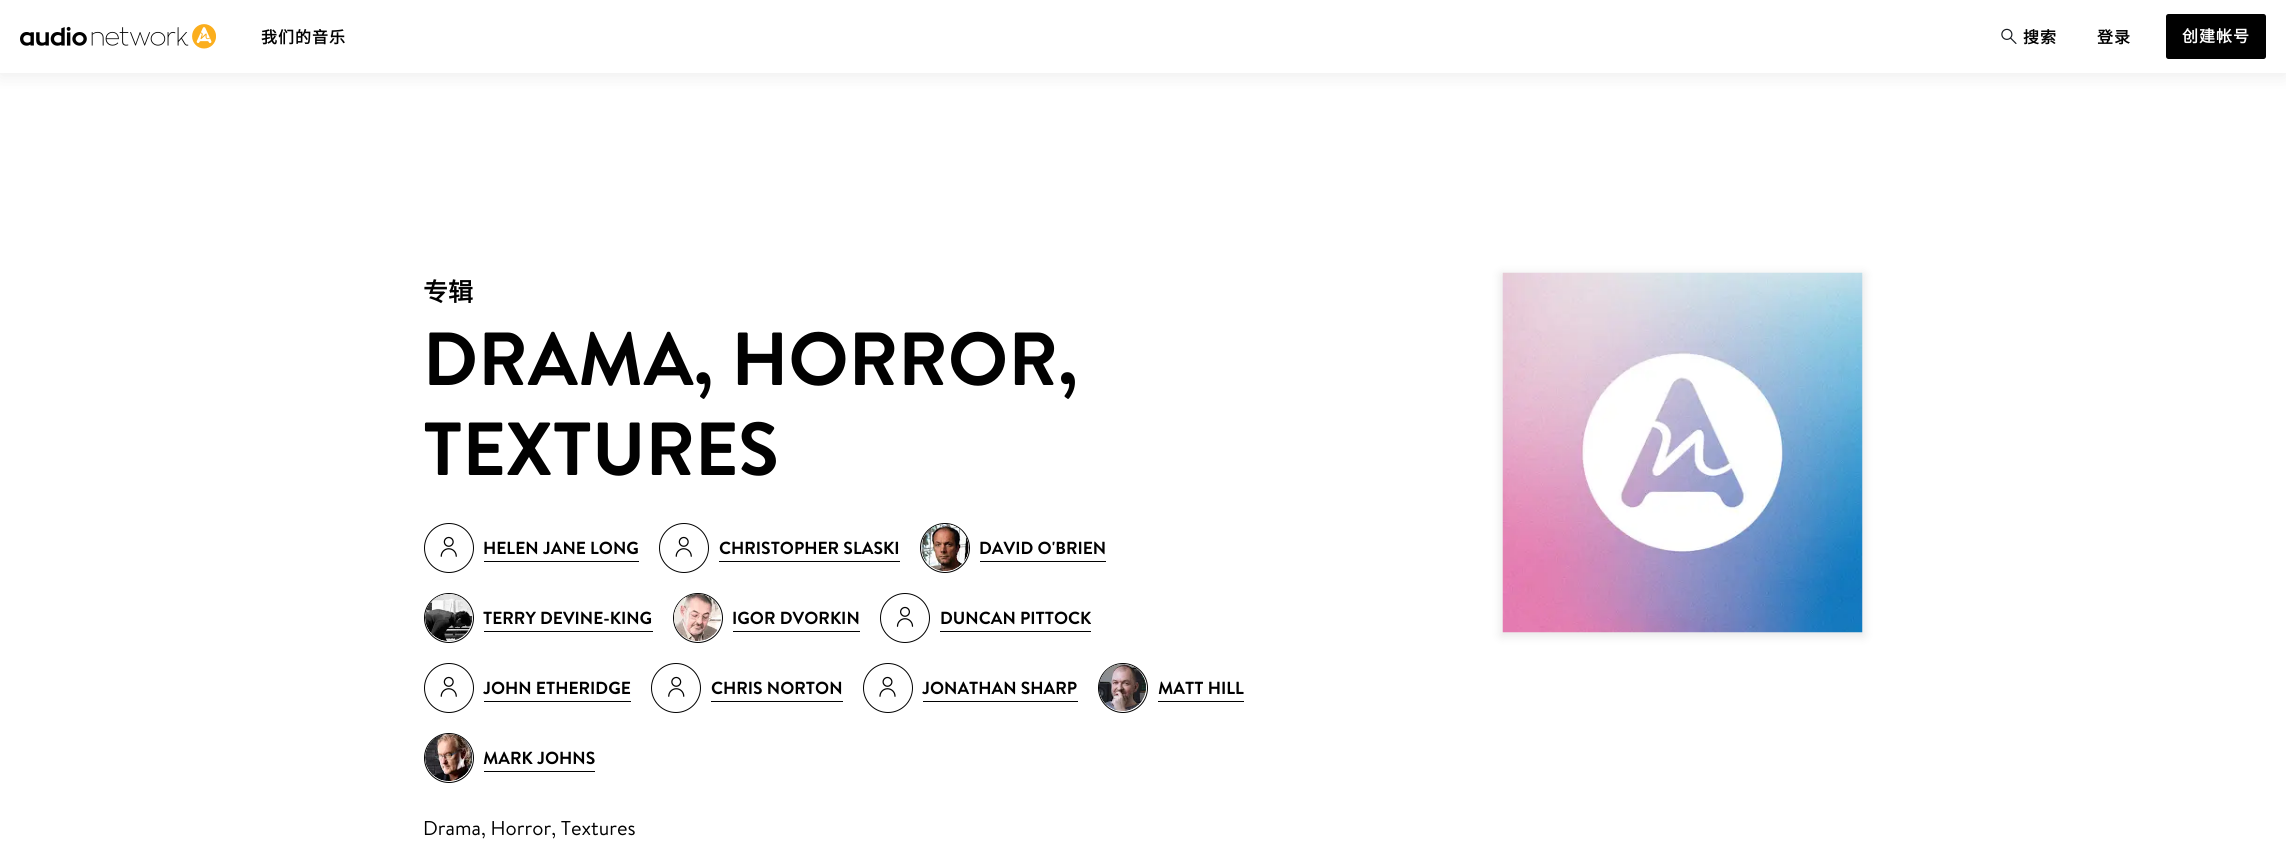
import math
import cairo

surface = cairo.ImageSurface(cairo.FORMAT_RGB24, 2286, 852)
c = cairo.Context(surface)
options = cairo.FontOptions()
options.set_hint_metrics(cairo.HINT_METRICS_OFF)
options.set_hint_style(cairo.HINT_STYLE_NONE)
c.set_font_options(options)
c.set_miter_limit(4)
def C(code):
 c.set_source_rgb(*(v / 255 for v in bytes.fromhex(code[-6:])))
def F(family, size, italic, bold):
 c.select_font_face(family, cairo.FONT_SLANT_ITALIC if italic else cairo.FONT_SLANT_NORMAL, cairo.FONT_WEIGHT_BOLD if bold else cairo.FONT_WEIGHT_NORMAL)
 c.set_font_size(size)
def T(x, y, s):
 c.move_to(x, y)
 c.show_text(s)
def L(x, y, s, letter, word):
 c.move_to(x, y)
 for ch in s:
  c.show_text(ch)
  c.rel_move_to(letter + word * (ch == ' '), 0)
def R(x, y, w, h):
 c.rectangle(x, y, w, h)
 c.fill()
def Q(x, y, w, h, r):
 c.new_sub_path()
 for i, (u, v) in enumerate([(x + w - r, y + h - r), (x + r, y + h - r), (x + r, y + r), (x + w - r, y + r)]):
  c.arc(u, v, r, i * math.pi / 2, (i + 1) * math.pi / 2)
 c.close_path()
def S(x, y, w, h, r, blur, alpha):
 c.push_group_with_content(cairo.CONTENT_ALPHA)
 c.set_operator(cairo.OPERATOR_SOURCE)
 for i in range(15, -16, -2):
  e = blur * i / 6
  if min(w, h) + 2 * e > 0:
   c.set_source_rgba(0, 0, 0, alpha * math.erfc((i - 1) / 8.5) / 2)
   Q(x - e, y - e, w + 2 * e, h + 2 * e, max(0, min(r + e + blur * .6, min(w, h) / 2 + e)))
   c.fill()
 c.mask(c.pop_group())
def I(path, x, y, w, h):
 c.save()
 c.set_source_surface(cairo.ImageSurface.create_from_png(path), x, y)
 c.rectangle(x, y, w, h)
 c.fill()
 c.restore()
C('ffffff')
c.paint()
C('000000')
S(0,3,2286,72,0,9.5,.08)
C('ffffff')
R(0,0,2286,73)
I('1.png',20,24,196,25)
F('Noto Sans CJK SC',16,0,1)
C('010101')
L(261,43,'我们的音乐',1,0)
I('2.png',2001,28,16,16)
L(2023,43,'搜索',1,0)
L(2097,43,'登录',1,0)
Q(2166,14,100,45,2.5)
c.fill()
C('ffffff')
L(2182,42,'创建帐号',1,0)
F('Noto Sans CJK SC',25,0,1)
C('010101')
T(423,301,'专辑')
F('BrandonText',75,0,0)
T(423,385,'DRAMA, HORROR,')
T(423,475,'TEXTURES')
c.new_path()
c.arc(449,548,24.5,0,2 * math.pi)
c.set_line_width(1)
c.stroke()
I('3.png',440,536,17,21)
F('BrandonText',17.5,0,0)
T(483,554,'HELEN JANE LONG')
R(484,561,155,1)
c.new_path()
c.arc(684,548,24.5,0,2 * math.pi)
c.stroke()
I('3.png',675,536,17,21)
T(719,554,'CHRISTOPHER SLASKI')
R(719,561,181,1)
c.new_path()
c.arc(945,548,24.5,0,2 * math.pi)
c.stroke()
I('4.png',921,524,48,47)
T(979,554,'DAVID O\'BRIEN')
R(980,561,126,1)
c.new_path()
c.arc(449,618,24.5,0,2 * math.pi)
c.stroke()
I('5.png',425,594,48,47)
T(483,624,'TERRY DEVINE-KING')
R(484,631,169,1)
c.new_path()
c.arc(698,618,24.5,0,2 * math.pi)
c.stroke()
I('6.png',674,594,47,47)
T(732,624,'IGOR DVORKIN')
R(733,631,127,1)
c.new_path()
c.arc(905,618,24.5,0,2 * math.pi)
c.stroke()
I('7.png',896,606,18,21)
T(940,624,'DUNCAN PITTOCK')
R(940,631,151,1)
c.new_path()
c.arc(449,688,24.5,0,2 * math.pi)
c.stroke()
I('3.png',440,676,17,21)
T(483,694,'JOHN ETHERIDGE')
R(484,701,147,1)
c.new_path()
c.arc(676,688,24.5,0,2 * math.pi)
c.stroke()
I('8.png',668,676,17,21)
T(711,694,'CHRIS NORTON')
R(711,701,132,1)
c.new_path()
c.arc(888,688,24.5,0,2 * math.pi)
c.stroke()
I('9.png',879,676,17,21)
T(922,694,'JONATHAN SHARP')
R(923,701,155,1)
c.new_path()
c.arc(1123,688,24.5,0,2 * math.pi)
c.stroke()
I('10.png',1099,664,47,47)
T(1158,694,'MATT HILL')
R(1158,701,86,1)
c.new_path()
c.arc(449,758,24.5,0,2 * math.pi)
c.stroke()
I('11.png',425,734,48,47)
T(483,764,'MARK JOHNS')
R(484,771,111,1)
F('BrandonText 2',20,0,0)
T(423,835,'Drama, Horror, Textures')
C('010101')
S(1501,274,363,362,0,5,.1)
I('12.png',1502,272,361,361)
surface.write_to_png('o.png')
